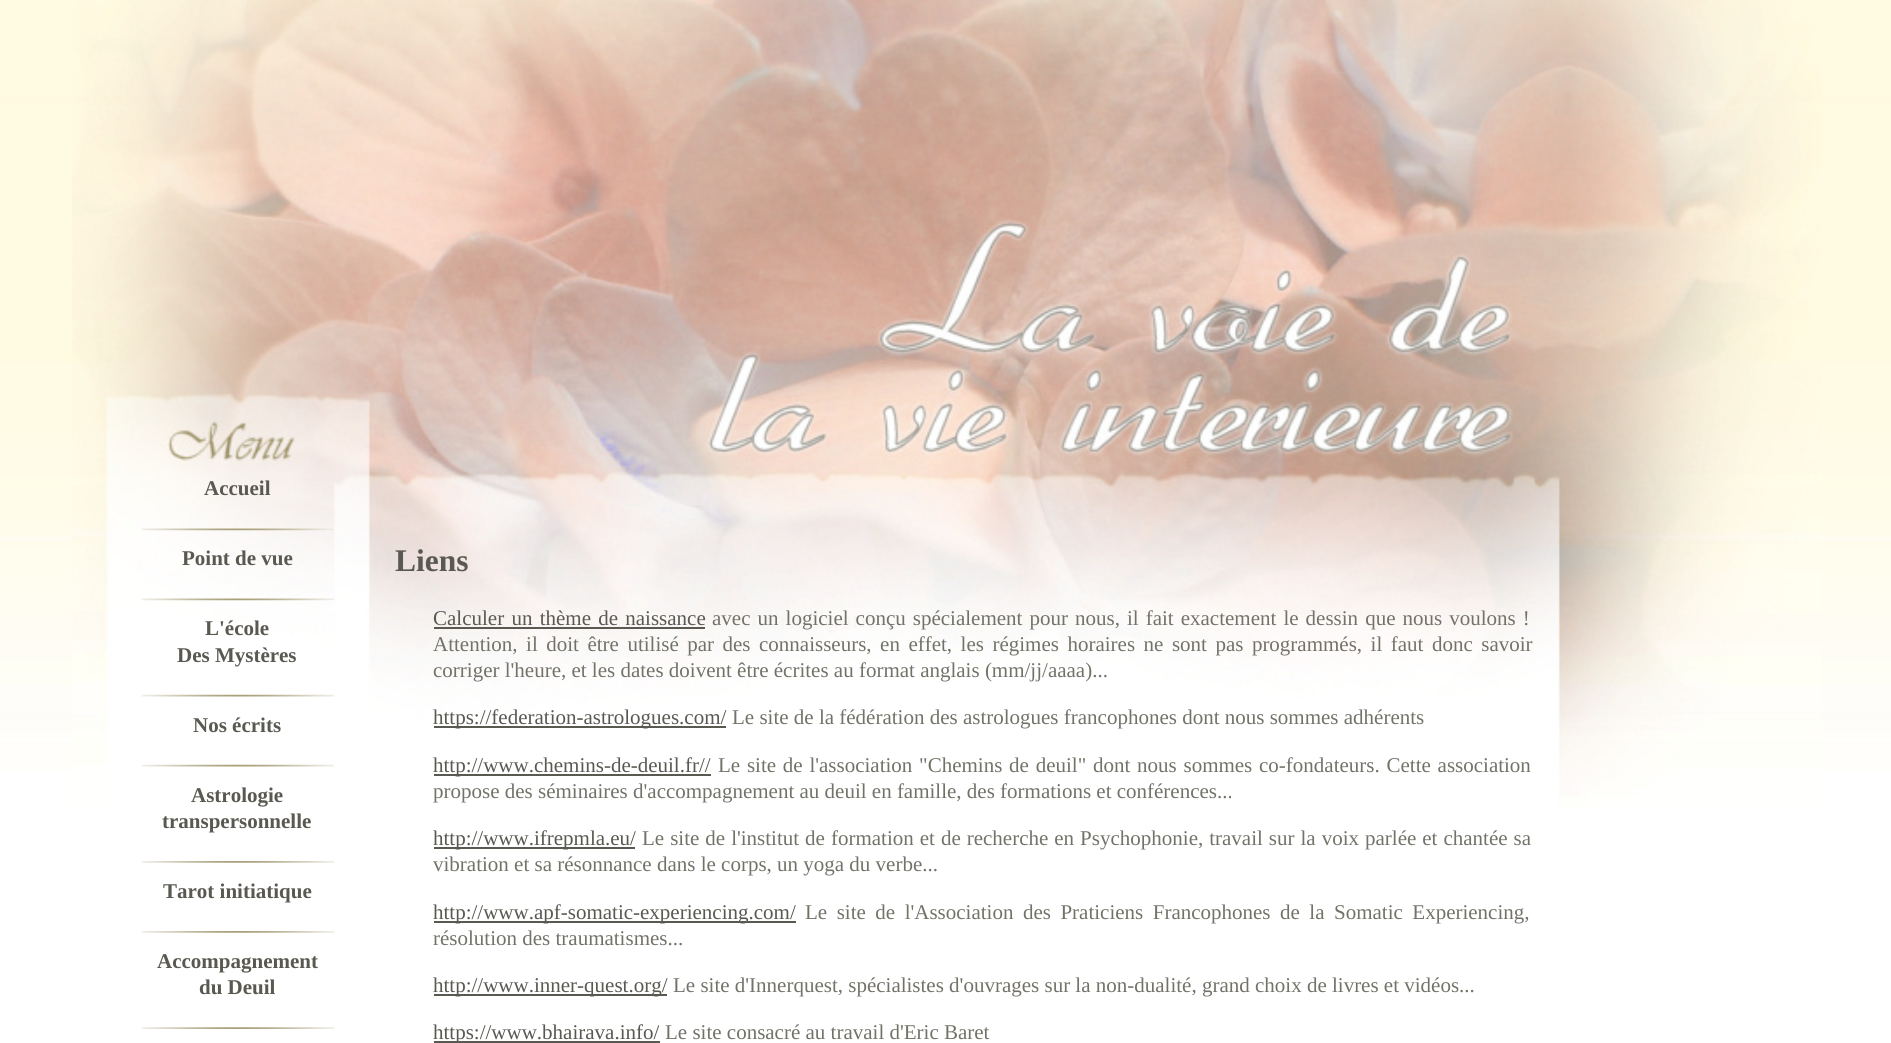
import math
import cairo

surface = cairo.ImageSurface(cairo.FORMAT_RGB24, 1891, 1043)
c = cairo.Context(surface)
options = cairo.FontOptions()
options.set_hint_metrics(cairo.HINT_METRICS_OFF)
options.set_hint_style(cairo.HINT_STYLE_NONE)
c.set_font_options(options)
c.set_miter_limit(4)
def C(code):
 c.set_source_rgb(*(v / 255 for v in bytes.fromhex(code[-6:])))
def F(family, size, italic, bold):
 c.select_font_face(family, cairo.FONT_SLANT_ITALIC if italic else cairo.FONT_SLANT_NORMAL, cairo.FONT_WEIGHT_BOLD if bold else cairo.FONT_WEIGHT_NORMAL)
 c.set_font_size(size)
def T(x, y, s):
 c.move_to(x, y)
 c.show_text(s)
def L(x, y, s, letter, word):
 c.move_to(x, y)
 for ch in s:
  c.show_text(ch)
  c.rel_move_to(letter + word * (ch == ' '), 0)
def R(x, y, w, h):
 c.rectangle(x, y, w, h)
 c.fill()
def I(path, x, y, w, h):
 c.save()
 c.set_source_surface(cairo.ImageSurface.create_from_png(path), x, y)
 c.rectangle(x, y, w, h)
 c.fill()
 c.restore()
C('ffffff')
c.paint()
I('1.png',0,0,1891,770)
I('2.png',72,0,1750,808)
F('Liberation Serif',21,0,1)
C('595851')
T(204,495,'Accueil')
I('3.png',141,528,194,3)
T(182,565,'Point de vue')
I('4.png',141,598,194,3)
T(205,635,'L\'école')
T(177,662,'Des Mystères')
I('5.png',141,694,194,3)
T(193,732,'Nos écrits')
I('5.png',141,764,194,3)
T(191,802,'Astrologie')
T(162,828,'transpersonnelle')
I('6.png',141,861,194,2)
T(163,898,'Tarot initiatique')
I('6.png',141,931,194,2)
T(157,968,'Accompagnement')
T(199,994,'du Deuil')
I('7.png',141,1027,194,2)
F('Liberation Serif',31.5,0,1)
T(395,571,'Liens')
F('Liberation Serif',21,0,0)
L(433,625,'Calculer un thème de naissance',0,2)
R(434,627,271,2)
C('737269')
L(712,625,'avec un logiciel conçu spécialement pour nous, il fait exactement le dessin que nous voulons !',0,1.8)
L(433,651,'Attention, il doit être utilisé par des connaisseurs, en effet, les régimes horaires ne sont pas programmés, il faut donc savoir',0,3.25)
T(433,677,'corriger l\'heure, et les dates doivent être écrites au format anglais (mm/jj/aaaa)...')
C('595851')
R(434,726,292,2)
T(433,724,'https://federation-astrologues.com/')
C('737269')
T(732,724,'Le site de la fédération des astrologues francophones dont nous sommes adhérents')
C('595851')
R(434,774,277,2)
T(433,772,'http://www.chemins-de-deuil.fr//')
C('737269')
L(718,772,'Le site de l\'association "Chemins de deuil" dont nous sommes co-fondateurs. Cette association',0,1.5)
T(433,798,'propose des séminaires d\'accompagnement au deuil en famille, des formations et conférences...')
C('595851')
R(434,847,201,2)
T(433,845,'http://www.ifrepmla.eu/')
C('737269')
L(642,845,'Le site de l\'institut de formation et de recherche en Psychophonie, travail sur la voix parlée et chantée sa',0,.75)
T(433,871,'vibration et sa résonnance dans le corps, un yoga du verbe...')
C('595851')
R(434,921,362,2)
T(433,919,'http://www.apf-somatic-experiencing.com/')
C('737269')
L(805,919,'Le site de l\'Association des Praticiens Francophones de la Somatic Experiencing,',0,4.25)
T(433,945,'résolution des traumatismes...')
C('595851')
R(434,994,233,2)
T(433,992,'http://www.inner-quest.org/')
C('737269')
T(673,992,'Le site d\'Innerquest, spécialistes d\'ouvrages sur la non-dualité, grand choix de livres et vidéos...')
C('595851')
R(434,1041,226,2)
T(433,1039,'https://www.bhairava.info/')
C('737269')
T(665,1039,'Le site consacré au travail d\'Eric Baret')
surface.write_to_png('o.png')
